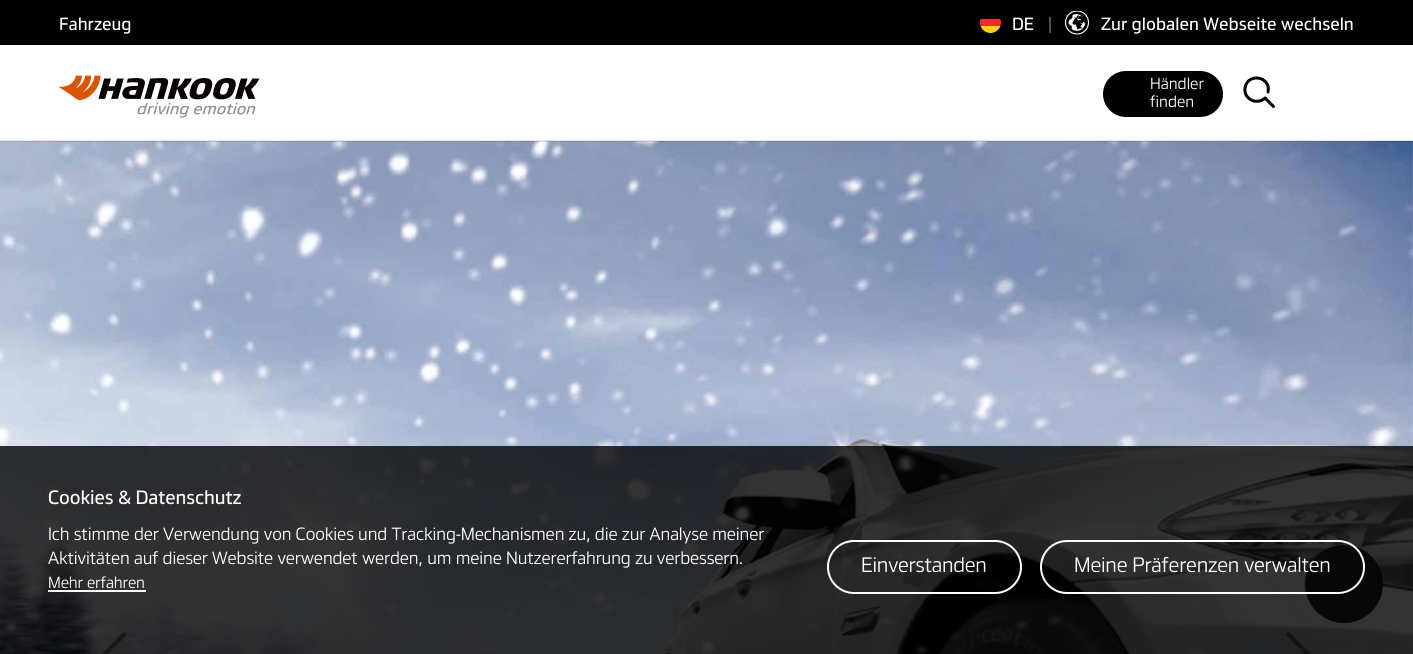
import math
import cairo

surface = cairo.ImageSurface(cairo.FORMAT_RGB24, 1413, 654)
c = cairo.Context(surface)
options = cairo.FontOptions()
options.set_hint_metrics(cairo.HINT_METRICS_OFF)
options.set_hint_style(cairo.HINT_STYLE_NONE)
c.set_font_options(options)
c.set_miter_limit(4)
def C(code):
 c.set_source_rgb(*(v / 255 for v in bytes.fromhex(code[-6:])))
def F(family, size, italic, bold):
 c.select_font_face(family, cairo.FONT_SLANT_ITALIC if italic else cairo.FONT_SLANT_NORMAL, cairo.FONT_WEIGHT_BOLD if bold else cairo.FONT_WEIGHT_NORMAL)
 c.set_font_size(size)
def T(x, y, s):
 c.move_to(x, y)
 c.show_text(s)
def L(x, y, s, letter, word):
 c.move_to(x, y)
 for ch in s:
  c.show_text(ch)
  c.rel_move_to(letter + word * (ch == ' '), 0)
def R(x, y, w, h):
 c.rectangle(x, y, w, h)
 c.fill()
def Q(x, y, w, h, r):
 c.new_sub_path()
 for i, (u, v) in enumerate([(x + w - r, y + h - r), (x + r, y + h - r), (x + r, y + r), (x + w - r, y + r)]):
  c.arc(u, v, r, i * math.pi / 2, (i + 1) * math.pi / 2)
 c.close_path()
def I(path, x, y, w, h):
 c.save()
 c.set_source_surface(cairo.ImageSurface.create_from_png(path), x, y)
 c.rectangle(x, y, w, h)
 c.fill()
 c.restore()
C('ffffff')
c.paint()
C('000000')
R(0,0,1413,45)
F('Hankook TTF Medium',16.5,0,0)
C('ffffff')
T(59,30,'Fahrzeug')
c.save()
Q(980,12,21,21,10.5)
c.clip()
C('ffd900')
R(980,26,21,7)
C('ff2430')
R(980,19,21,7)
c.restore()
T(1012,30,'DE')
C('4d4d4d')
R(1049,17,2,16)
I('1.png',1065,11,24,24)
C('ffffff')
T(1101,30,'Zur globalen Webseite wechseln')
I('3.png',0,141,1413,513)
c.set_source_rgba(0,0,0,0.1)
R(0,140,1413,2)
I('2.png',59,75,201,43)
C('000000')
Q(1103,71,120,46,23)
c.fill()
F('Hankook TTF',15,0,0)
C('ffffff')
T(1150,89,'Händler')
T(1150,107,'finden')
c.new_path()
c.move_to(1265,98)
c.curve_to(1260.5,102.5,1252.5,102.5,1248,97.5)
c.curve_to(1245.5,95,1244.5,91.5,1245,88)
c.curve_to(1247.5,72,1271.5,76.5,1268,92)
c.move_to(1265,98)
c.line_to(1273.5,106.5)
C('000000')
c.set_line_width(3)
c.set_line_cap(cairo.LINE_CAP_ROUND)
c.stroke()
C('222222')
c.arc(1344,584,39,0,2 * math.pi)
c.fill()
I('4.png',101,632,26,22)
I('5.png',1286,632,26,22)
c.set_source_rgba(0,0,0,0.8)
R(0,446,1413,208)
F('Hankook TTF Medium',18,0,0)
C('ffffff')
L(48,504,'Cookies & Datenschutz',-.1,0)
F('Hankook TTF',16.5,0,0)
L(48,540,'Ich stimme der Verwendung von Cookies und Tracking-Mechanismen zu, die zur Analyse meiner',-.1,0)
L(48,564,'Aktivitäten auf dieser Website verwendet werden, um meine Nutzererfahrung zu verbessern.',-.1,0)
F('Hankook TTF',15,0,0)
L(48,588,'Mehr erfahren',-.1,0)
R(48,590,98,2)
Q(828,541,193,52,26)
c.set_line_width(2)
c.set_line_cap(cairo.LINE_CAP_BUTT)
c.stroke()
F('Hankook TTF',19.5,0,0)
L(861,572,'Einverstanden',-.2,0)
Q(1041,541,323,52,26)
c.stroke()
L(1074,572,'Meine Präferenzen verwalten',-.2,0)
surface.write_to_png('o.png')
